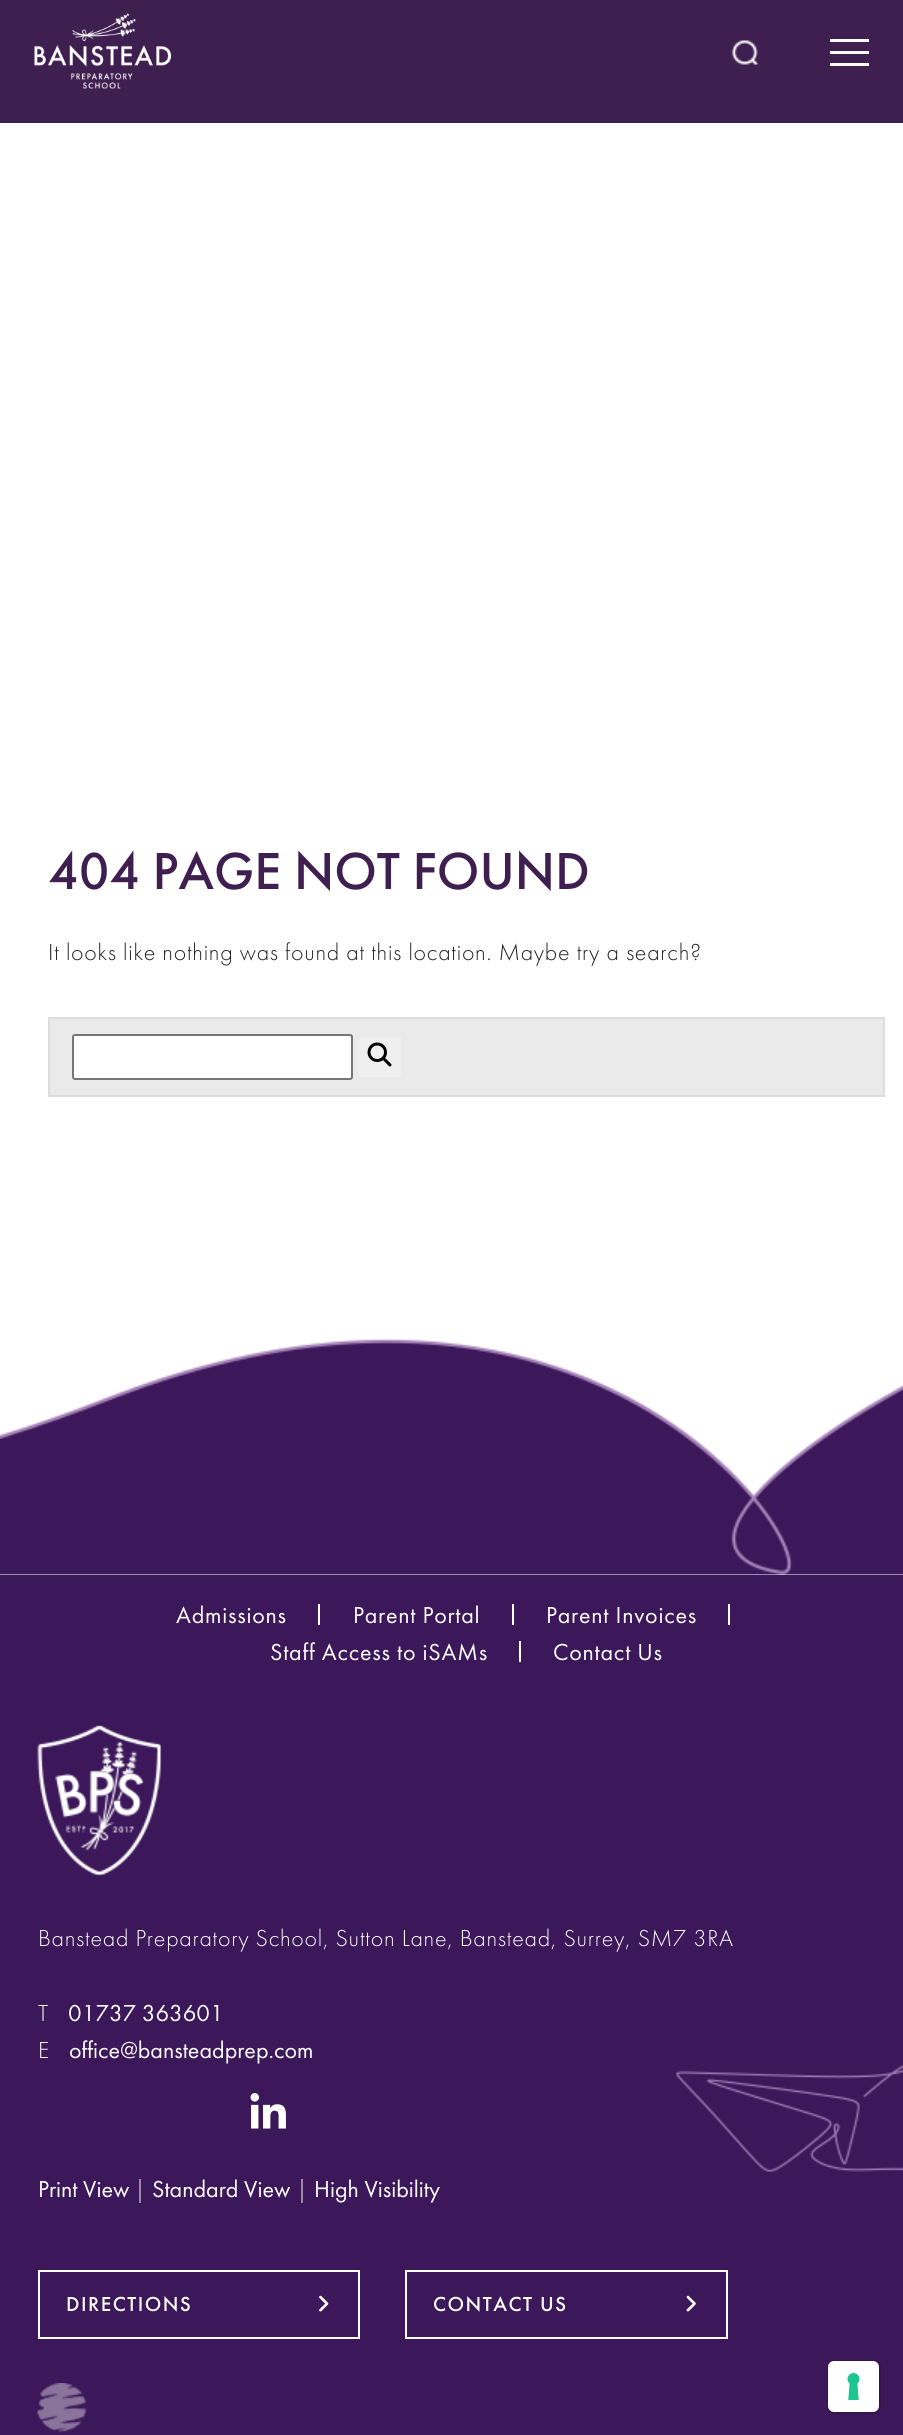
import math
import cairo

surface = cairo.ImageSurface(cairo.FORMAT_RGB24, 903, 2435)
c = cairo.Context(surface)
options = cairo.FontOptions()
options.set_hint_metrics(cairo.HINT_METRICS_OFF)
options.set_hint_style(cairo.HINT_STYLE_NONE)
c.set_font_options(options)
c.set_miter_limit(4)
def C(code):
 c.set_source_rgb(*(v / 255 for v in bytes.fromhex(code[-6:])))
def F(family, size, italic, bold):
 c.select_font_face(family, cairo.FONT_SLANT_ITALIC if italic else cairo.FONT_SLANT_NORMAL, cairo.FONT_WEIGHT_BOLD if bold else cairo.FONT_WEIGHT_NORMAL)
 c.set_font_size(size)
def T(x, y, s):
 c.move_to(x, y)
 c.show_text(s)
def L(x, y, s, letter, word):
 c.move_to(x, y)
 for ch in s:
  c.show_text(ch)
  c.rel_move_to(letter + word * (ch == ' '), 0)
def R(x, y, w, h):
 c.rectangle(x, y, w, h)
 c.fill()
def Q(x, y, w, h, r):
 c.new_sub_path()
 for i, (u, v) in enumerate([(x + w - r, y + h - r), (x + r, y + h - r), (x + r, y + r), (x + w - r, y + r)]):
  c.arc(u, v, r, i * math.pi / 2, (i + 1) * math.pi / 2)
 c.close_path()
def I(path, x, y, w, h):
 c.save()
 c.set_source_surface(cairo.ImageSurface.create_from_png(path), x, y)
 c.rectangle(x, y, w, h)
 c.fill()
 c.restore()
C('ffffff')
c.paint()
C('3f1e50')
R(0,0,903,123)
I('1.png',34,13,137,76)
I('2.png',731,40,27,25)
C('ffffff')
R(830,51,39,3)
R(830,39,39,3)
R(830,63,39,3)
F('Futura PT Medium',54,0,0)
C('3f1e50')
T(48,889,'404 PAGE NOT FOUND')
F('Futura PT Light',24,0,0)
C('231f20')
L(48,960,'It looks like nothing was found at this location. Maybe try a search?',.75,0)
C('eaeaea')
c.rectangle(49,1018,835,78)
c.fill_preserve()
C('dddddd')
c.stroke()
C('ffffff')
Q(73,1035,279,44,2)
c.fill_preserve()
C('767676')
c.stroke()
C('efefef')
R(359,1037,42,40)
I('3.png',367,1042,25,25)
I('4.png',0,1338,903,237)
C('3c175a')
R(0,1575,903,860)
F('Futura PT',24,0,0)
C('ffffff')
L(176,1623,'Admissions',.75,0)
R(318,1604,2,21)
L(353,1623,'Parent Portal',.75,0)
R(512,1604,2,21)
L(546,1623,'Parent Invoices',.75,0)
R(728,1604,2,21)
L(270,1660,'Staff Access to iSAMs',.75,0)
R(519,1641,2,21)
L(553,1660,'Contact Us',.75,0)
I('5.png',37,1725,125,151)
F('Futura PT Light',24,0,0)
L(38,1946,'Banstead Preparatory School, Sutton Lane, Banstead, Surrey, SM7 3RA',.75,0)
T(38,2021,'T')
F('Futura PT',24,0,0)
T(68,2021,'01737 363601')
F('Futura PT Light',24,0,0)
T(38,2058,'E')
F('Futura PT',24,0,0)
T(69,2058,'office@bansteadprep.com')
I('6.png',250,2093,36,36)
T(38,2197,'Print View')
F('Futura PT Light',24,0,0)
T(134,2197,'|')
F('Futura PT',24,0,0)
T(152,2197,'Standard View')
F('Futura PT Light',24,0,0)
T(296,2197,'|')
F('Futura PT',24,0,0)
T(314,2197,'High Visibility')
c.rectangle(39,2271,320,67)
c.stroke()
F('Futura PT Medium',21,0,0)
L(66,2311,'DIRECTIONS',1.5,0)
I('7.png',319,2295,10,17)
c.rectangle(406,2271,321,67)
c.stroke()
L(433,2311,'CONTACT US',1.5,0)
I('8.png',686,2295,10,17)
I('9.png',37,2383,50,50)
I('10.png',676,2064,227,108)
Q(828,2361,52,52,7)
C('33144d')
c.stroke()
C('ffffff')
Q(828,2361,51,51,6)
c.fill()
I('11.png',847,2373,13,27)
surface.write_to_png('o.png')
